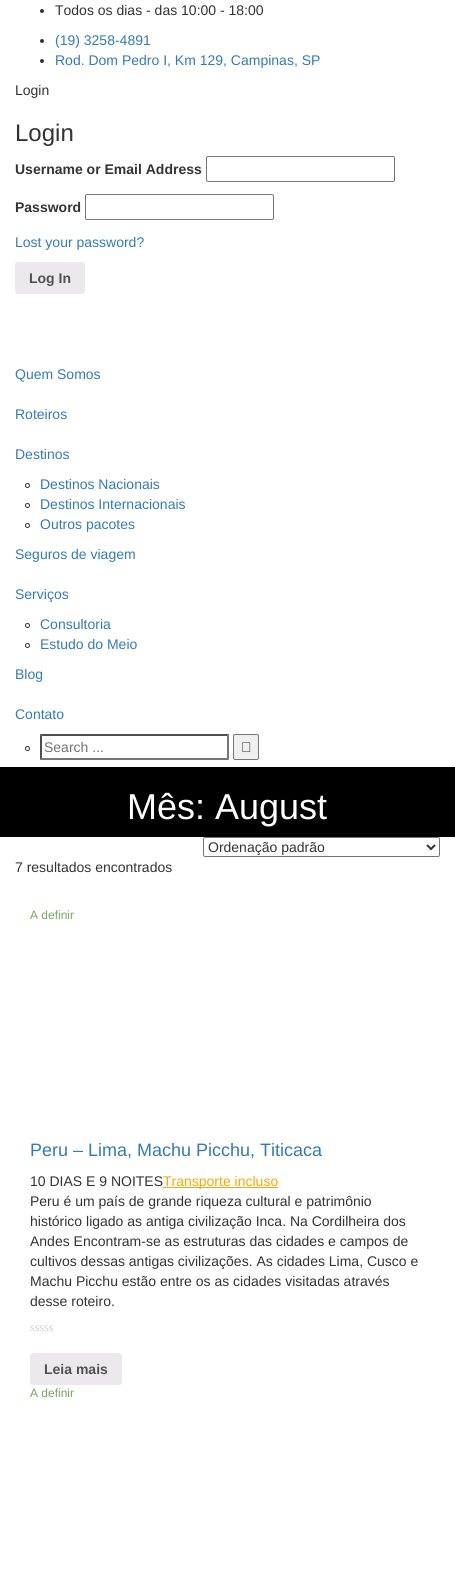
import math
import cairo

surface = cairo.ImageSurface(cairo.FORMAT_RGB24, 455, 1588)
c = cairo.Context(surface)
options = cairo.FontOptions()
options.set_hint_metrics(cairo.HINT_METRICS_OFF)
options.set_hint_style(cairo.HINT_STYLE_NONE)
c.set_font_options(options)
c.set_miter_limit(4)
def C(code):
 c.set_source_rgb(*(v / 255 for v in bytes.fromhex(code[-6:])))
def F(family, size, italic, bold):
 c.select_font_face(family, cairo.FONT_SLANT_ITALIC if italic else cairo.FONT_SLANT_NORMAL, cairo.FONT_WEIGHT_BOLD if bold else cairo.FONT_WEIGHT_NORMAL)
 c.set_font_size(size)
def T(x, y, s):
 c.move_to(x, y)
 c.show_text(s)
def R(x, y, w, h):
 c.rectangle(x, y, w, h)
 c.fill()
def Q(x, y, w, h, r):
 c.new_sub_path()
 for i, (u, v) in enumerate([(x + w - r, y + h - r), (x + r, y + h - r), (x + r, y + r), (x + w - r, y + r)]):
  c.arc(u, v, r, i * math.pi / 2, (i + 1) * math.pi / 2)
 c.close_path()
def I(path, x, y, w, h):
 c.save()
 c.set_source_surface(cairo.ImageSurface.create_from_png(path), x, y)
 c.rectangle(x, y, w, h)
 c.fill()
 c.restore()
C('ffffff')
c.paint()
C('333333')
c.arc(42,11,2,0,2 * math.pi)
c.fill()
F('Liberation Sans',14,0,0)
T(55,15,'Todos os dias - das 10:00 - 18:00')
c.new_path()
c.arc(42,41,2,0,2 * math.pi)
c.fill()
C('337ab7')
T(55,45,'(19) 3258-4891')
C('333333')
c.new_path()
c.arc(42,61,2,0,2 * math.pi)
c.fill()
C('337ab7')
T(55,65,'Rod. Dom Pedro I, Km 129, Campinas, SP')
C('333333')
T(15,95,'Login')
F('Liberation Sans',24,0,0)
T(15,141,'Login')
F('Liberation Sans',14,0,1)
T(15,174,'Username or Email Address')
Q(206.5,156.5,188,25,1.5)
C('767676')
c.set_line_width(1)
c.stroke()
C('333333')
T(15,212,'Password')
Q(85.5,194.5,188,25,1.5)
C('767676')
c.stroke()
F('Liberation Sans',14,0,0)
C('337ab7')
T(15,247,'Lost your password?')
C('ebe9eb')
Q(15,262,70,32,3)
c.fill()
F('Liberation Sans',14,0,1)
C('515151')
T(29,283,'Log In')
F('Liberation Sans',14,0,0)
C('337ab7')
T(15,379,'Quem Somos')
T(15,419,'Roteiros')
T(15,459,'Destinos')
c.new_path()
c.arc(27.5,485.5,2,0,2 * math.pi)
C('333333')
c.stroke()
C('337ab7')
T(40,489,'Destinos Nacionais')
c.new_path()
c.arc(27.5,505.5,2,0,2 * math.pi)
C('333333')
c.stroke()
C('337ab7')
T(40,509,'Destinos Internacionais')
c.new_path()
c.arc(27.5,525.5,2,0,2 * math.pi)
C('333333')
c.stroke()
C('337ab7')
T(40,529,'Outros pacotes')
T(15,559,'Seguros de viagem')
T(15,599,'Serviços')
c.new_path()
c.arc(27.5,625.5,2,0,2 * math.pi)
C('333333')
c.stroke()
C('337ab7')
T(40,629,'Consultoria')
c.new_path()
c.arc(27.5,645.5,2,0,2 * math.pi)
C('333333')
c.stroke()
C('337ab7')
T(40,649,'Estudo do Meio')
T(15,679,'Blog')
T(15,719,'Contato')
c.new_path()
c.arc(27.5,748.5,2,0,2 * math.pi)
C('333333')
c.stroke()
C('4f4f4f')
c.new_path()
c.move_to(40,734)
c.line_to(229,734)
c.line_to(227,736)
c.line_to(42,736)
c.close_path()
c.fill()
C('767676')
c.new_path()
c.move_to(229,734)
c.line_to(229,760)
c.line_to(227,758)
c.line_to(227,736)
c.close_path()
c.fill()
c.new_path()
c.move_to(229,760)
c.line_to(40,760)
c.line_to(42,758)
c.line_to(227,758)
c.close_path()
c.fill()
C('4f4f4f')
c.new_path()
c.move_to(40,760)
c.line_to(40,734)
c.line_to(42,736)
c.line_to(42,758)
c.close_path()
c.fill()
C('757575')
T(44,752,'Search ...')
C('efefef')
Q(233.5,734.5,25,25,1.5)
c.fill_preserve()
C('767676')
c.stroke()
I('1.png',242,742,9,10)
C('000000')
R(0,767,455,70)
F('Liberation Sans',36,0,0)
C('ffffff')
T(127,819,'Mês: August')
Q(203.5,837.5,236,19,1.5)
C('767676')
c.stroke()
c.new_path()
c.move_to(427,845)
c.line_to(431,849)
c.line_to(435,845)
C('333333')
c.set_line_width(2)
c.stroke()
F('Liberation Sans',14,0,0)
T(208,852,'Ordenação padrão')
T(15,872,'7 resultados encontrados')
F('Liberation Sans',12,0,0)
C('77a464')
T(30,919,'A definir')
F('Liberation Sans',18,0,0)
C('337ab7')
T(30,1156,'Peru – Lima, Machu Picchu, Titicaca')
F('Liberation Sans',14,0,0)
C('333333')
T(30,1186,'10 DIAS E 9 NOITES')
C('ffa500')
R(163,1187,115,1)
T(163,1186,'Transporte incluso')
C('333333')
T(30,1206,'Peru é um país de grande riqueza cultural e patrimônio')
T(30,1226,'histórico ligado as antiga civilização Inca. Na Cordilheira dos')
T(30,1246,'Andes Encontram-se as estruturas das cidades e campos de')
T(30,1266,'cultivos dessas antigas civilizações. As cidades Lima, Cusco e')
T(30,1286,'Machu Picchu estão entre os as cidades visitadas através')
T(30,1306,'desse roteiro.')
F('Liberation Serif',12,0,0)
C('d3ced2')
T(30,1331,'sssss')
C('ebe9eb')
Q(30,1353,92,32,3)
c.fill()
F('Liberation Sans',14,0,1)
C('515151')
T(44,1374,'Leia mais')
F('Liberation Sans',12,0,0)
C('77a464')
T(30,1397,'A definir')
surface.write_to_png('o.png')
